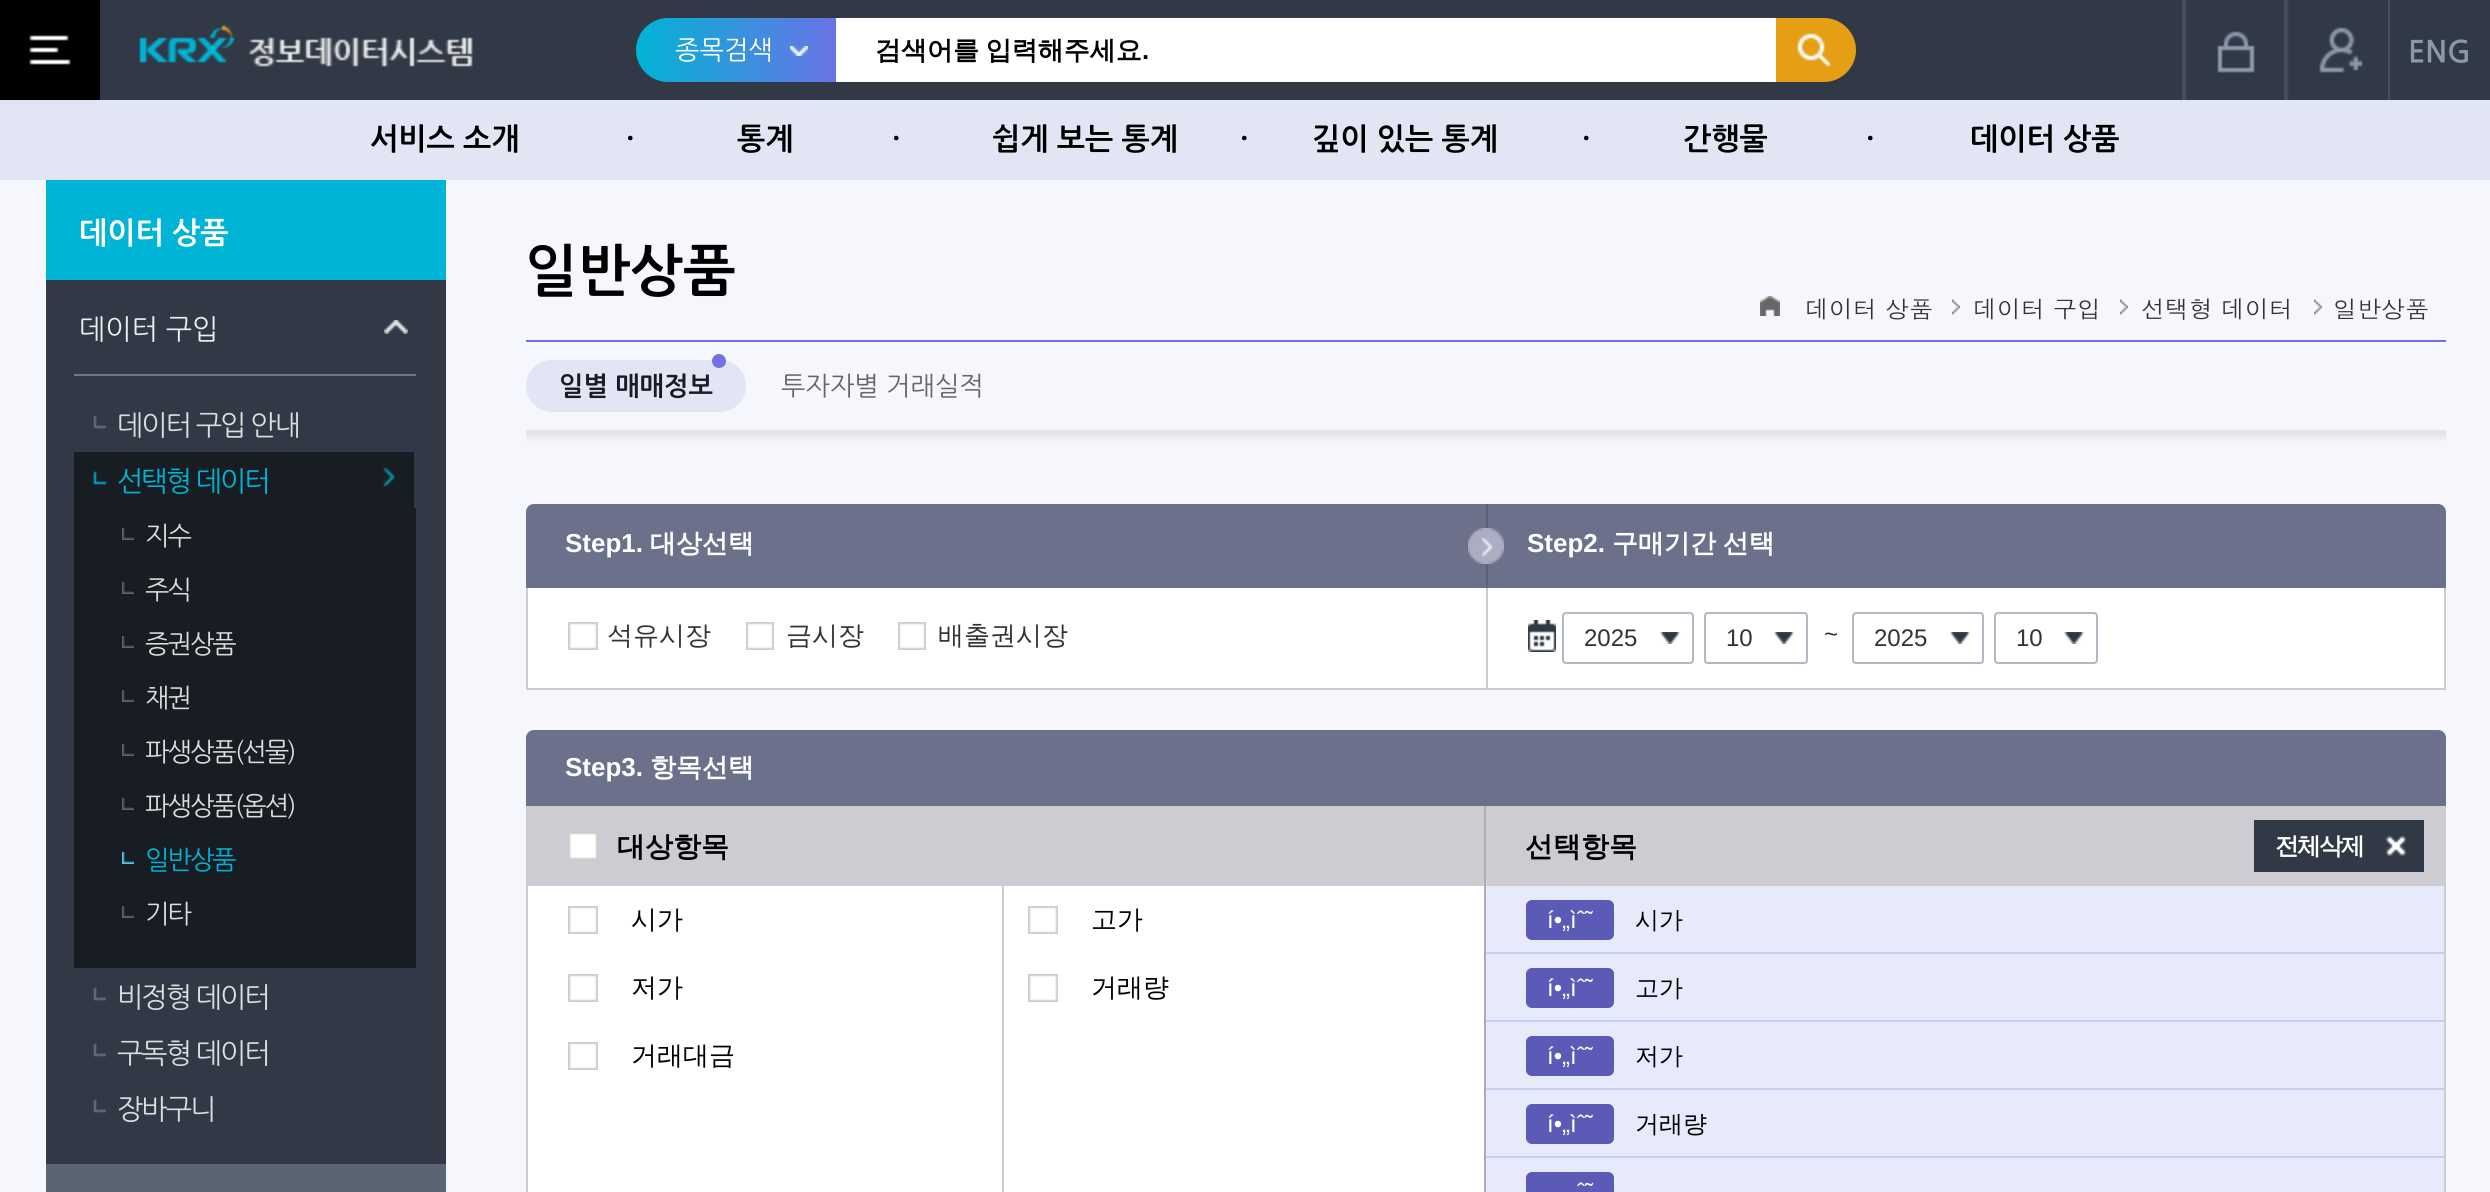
import math
import cairo

surface = cairo.ImageSurface(cairo.FORMAT_RGB24, 2490, 1192)
c = cairo.Context(surface)
options = cairo.FontOptions()
options.set_hint_metrics(cairo.HINT_METRICS_OFF)
options.set_hint_style(cairo.HINT_STYLE_NONE)
c.set_font_options(options)
c.set_miter_limit(4)
def C(code):
 c.set_source_rgb(*(v / 255 for v in bytes.fromhex(code[-6:])))
def F(family, size, italic, bold):
 c.select_font_face(family, cairo.FONT_SLANT_ITALIC if italic else cairo.FONT_SLANT_NORMAL, cairo.FONT_WEIGHT_BOLD if bold else cairo.FONT_WEIGHT_NORMAL)
 c.set_font_size(size)
def T(x, y, s):
 c.move_to(x, y)
 c.show_text(s)
def L(x, y, s, letter, word):
 c.move_to(x, y)
 for ch in s:
  c.show_text(ch)
  c.rel_move_to(letter + word * (ch == ' '), 0)
def R(x, y, w, h):
 c.rectangle(x, y, w, h)
 c.fill()
def Q(x, y, w, h, r):
 c.new_sub_path()
 for i, (u, v) in enumerate([(x + w - r, y + h - r), (x + r, y + h - r), (x + r, y + r), (x + w - r, y + r)]):
  c.arc(u, v, r, i * math.pi / 2, (i + 1) * math.pi / 2)
 c.close_path()
def I(path, x, y, w, h):
 c.save()
 c.set_source_surface(cairo.ImageSurface.create_from_png(path), x, y)
 c.rectangle(x, y, w, h)
 c.fill()
 c.restore()
C('f6f7fc')
c.paint()
C('313946')
R(100,0,2390,100)
I('1.png',0,0,100,100)
I('2.png',139,25,334,42)
gradient = cairo.LinearGradient(636,50,836,50)
gradient.add_color_stop_rgba(0,0,0.706,0.835,1)
gradient.add_color_stop_rgba(1,0.416,0.451,0.902,1)
gradient.add_color_stop_rgba(1,0.475,0.035,0.035,1)
gradient.add_color_stop_rgba(1,0,0.831,1,1)
c.set_source(gradient)
c.new_path()
c.move_to(668,18)
c.line_to(836,18)
c.line_to(836,82)
c.line_to(668,82)
c.curve_to(650.5,82,636,67.5,636,50)
c.curve_to(636,32.5,650.5,18,668,18)
c.close_path()
c.fill()
F('NanumGothic',26,0,0)
C('ffffff')
T(675,58,'종목검색')
I('3.png',790,46,18,10)
R(836,18,940,64)
F('WenQuanYi Zen Hei',26,0,1)
C('000000')
L(875,59,'검색어를 입력해주세요',0,-1)
F('Liberation Sans',26,0,1)
T(1142,59,'.')
C('e49f15')
c.new_path()
c.move_to(1776,18)
c.line_to(1824,18)
c.curve_to(1841.5,18,1856,32.5,1856,50)
c.curve_to(1856,67.5,1841.5,82,1824,82)
c.line_to(1776,82)
c.close_path()
c.fill()
I('4.png',1797,33,34,34)
C('474e5a')
R(2182,0,2,100)
I('5.png',2184,0,71,100)
R(2284,0,2,100)
I('6.png',2286,0,77,100)
R(2388,0,2,100)
F('NanumGothic',30,0,1)
C('8b98aa')
T(2408,61,'ENG')
C('e2e5f4')
R(0,100,2490,80)
C('000000')
T(370,148,'서비스 소개')
T(626,148,'·')
T(737,148,'통계')
T(892,148,'·')
T(992,148,'쉽게 보는 통계')
T(1240,148,'·')
T(1312,148,'깊이 있는 통계')
T(1582,148,'·')
T(1683,148,'간행물')
T(1866,148,'·')
T(1970,148,'데이터 상품')
C('00b4d5')
R(46,180,400,100)
C('ffffff')
T(79,242,'데이터 상품')
C('313946')
R(46,280,400,884)
F('NanumGothic',28,0,0)
C('eeeeee')
T(79,338,'데이터 구입')
C('6f7686')
R(74,374,342,2)
I('7.png',384,320,24,14)
I('8.png',93,415,14,14)
C('dddddd')
L(117,434,'데이터 구입 안내',-2,0)
C('181d23')
R(74,452,340,56)
I('9.png',93,467,302,20)
C('00b4d5')
L(117,490,'선택형 데이터',-2,0)
C('181d23')
R(74,508,342,460)
I('10.png',122,528,12,12)
F('NanumGothic',26,0,0)
C('dddddd')
L(145,544,'지수',-2,0)
I('10.png',122,582,12,12)
L(145,598,'주식',-2,0)
I('10.png',122,636,12,12)
L(145,652,'증권상품',-2,0)
I('10.png',122,690,12,12)
L(145,706,'채권',-2,0)
I('10.png',122,744,12,12)
L(145,760,'파생상품(선물)',-2,0)
I('10.png',122,798,12,12)
L(145,814,'파생상품(옵션)',-2,0)
I('11.png',122,852,12,12)
C('00b4d5')
L(145,868,'일반상품',-2,0)
I('10.png',122,906,12,12)
C('dddddd')
L(145,922,'기타',-2,0)
I('8.png',93,987,14,14)
F('NanumGothic',28,0,0)
L(117,1006,'비정형 데이터',-2,0)
I('8.png',93,1043,14,14)
L(117,1062,'구독형 데이터',-2,0)
I('8.png',93,1099,14,14)
L(117,1118,'장바구니',-2,0)
C('5b6473')
R(46,1164,400,28)
F('NanumGothic',56,0,1)
C('000000')
T(525,288,'일반상품')
I('12.png',1760,296,20,20)
F('Dotum',24,0,0)
C('333333')
T(1805,318,'데이터 상품')
I('13.png',1952,299,8,16)
T(1973,318,'데이터 구입')
I('13.png',2120,299,8,16)
T(2141,318,'선택형 데이터')
I('13.png',2314,299,8,16)
T(2333,318,'일반상품')
I('14.png',526,429,1920,12)
C('7070e7')
R(526,340,1920,2)
C('e2e5f4')
Q(526,360,220,52,26)
c.fill()
C('7070e7')
c.arc(719,361,7,0,2 * math.pi)
c.fill()
F('NanumGothic',26,0,1)
C('181d23')
T(559,394,'일별 매매정보')
F('NanumGothic',26,0,0)
C('666666')
T(781,394,'투자자별 거래실적')
C('6b718b')
c.new_path()
c.move_to(534,504)
c.line_to(1486,504)
c.line_to(1486,588)
c.line_to(526,588)
c.line_to(526,512)
c.curve_to(526,507.5,529.5,504,534,504)
c.close_path()
c.fill()
F('Liberation Sans',26,0,1)
C('ffffff')
T(565,552,'Step1.')
F('WenQuanYi Zen Hei',26,0,1)
T(650,552,'대상선택')
C('6b718b')
c.new_path()
c.move_to(1486,504)
c.line_to(2438,504)
c.curve_to(2442.5,504,2446,507.5,2446,512)
c.line_to(2446,588)
c.line_to(1486,588)
c.close_path()
c.fill()
C('5c6471')
c.new_path()
c.move_to(1486,504)
c.line_to(1488,504)
c.line_to(1488,586)
c.line_to(1486,588)
c.close_path()
c.fill()
I('15.png',1468,528,36,36)
F('Liberation Sans',26,0,1)
C('ffffff')
T(1527,552,'Step2.')
F('WenQuanYi Zen Hei',26,0,1)
L(1612,552,'구매기간 선택',0,-1)
R(528,588,958,100)
C('cdccd1')
R(526,688,960,2)
R(526,588,2,102)
I('16.png',568,622,30,28)
F('WenQuanYi Zen Hei Medium',26,0,0)
C('333333')
T(607,644,'석유시장')
I('17.png',746,622,28,28)
T(786,644,'금시장')
I('17.png',898,622,28,28)
T(938,644,'배출권시장')
C('ffffff')
R(1488,588,956,100)
C('cdccd1')
R(2444,588,2,102)
R(1486,688,960,2)
R(1486,588,2,102)
I('18.png',1528,620,28,32)
I('19.png',1660,632,21,12)
Q(1563,613,130,50,3)
C('b3b7c4')
c.stroke()
F('Liberation Sans',24,0,0)
C('333333')
T(1584,646,'2025')
I('19.png',1774,632,21,12)
Q(1705,613,102,50,3)
C('b3b7c4')
c.stroke()
C('333333')
T(1726,646,'10')
T(1824,642,'~')
I('19.png',1950,632,21,12)
Q(1853,613,130,50,3)
C('b3b7c4')
c.stroke()
C('333333')
T(1874,646,'2025')
I('19.png',2064,632,21,12)
Q(1995,613,102,50,3)
C('b3b7c4')
c.stroke()
C('333333')
T(2016,646,'10')
C('6b718b')
c.new_path()
c.move_to(534,730)
c.line_to(2438,730)
c.curve_to(2442.5,730,2446,733.5,2446,738)
c.line_to(2446,806)
c.line_to(526,806)
c.line_to(526,738)
c.curve_to(526,733.5,529.5,730,534,730)
c.close_path()
c.fill()
F('Liberation Sans',26,0,1)
C('ffffff')
T(565,776,'Step3.')
F('WenQuanYi Zen Hei',26,0,1)
T(650,776,'항목선택')
C('cdccd2')
R(2444,806,2,386)
R(526,806,2,386)
C('aeadb3')
R(1484,806,2,386)
C('cdccd2')
R(528,806,956,80)
I('16.png',568,832,30,28)
F('WenQuanYi Zen Hei',28,0,1)
C('000000')
T(617,856,'대상항목')
C('ffffff')
R(528,886,956,306)
I('16.png',568,906,30,28)
F('WenQuanYi Zen Hei Medium',26,0,0)
C('000000')
T(631,928,'시가')
C('cdccd1')
R(1002,886,2,306)
I('16.png',1028,906,30,28)
C('000000')
T(1091,928,'고가')
I('16.png',568,974,30,28)
T(631,996,'저가')
I('16.png',1028,974,30,28)
T(1091,996,'거래량')
I('16.png',568,1042,30,28)
T(631,1064,'거래대금')
C('cdccd2')
R(1486,806,958,80)
F('WenQuanYi Zen Hei',28,0,1)
C('000000')
T(1525,856,'선택항목')
C('313946')
R(2254,820,170,52)
F('WenQuanYi Zen Hei',24,0,1)
C('ffffff')
L(2275,854,'전체삭제',-2,0)
I('20.png',2386,836,20,20)
C('e7eafb')
R(1486,886,958,66)
C('c9cfef')
R(1486,952,958,2)
C('5b5ab7')
Q(1526,900,88,40,6)
c.fill()
F('Liberation Sans',24,0,0)
C('ffffff')
T(1547,928,'í•„ìˆ˜')
F('WenQuanYi Zen Hei Medium',24,0,0)
C('000000')
T(1635,928,'시가')
C('e7eafb')
R(1486,954,958,66)
C('c9cfef')
R(1486,1020,958,2)
C('5b5ab7')
Q(1526,968,88,40,6)
c.fill()
F('Liberation Sans',24,0,0)
C('ffffff')
T(1547,996,'í•„ìˆ˜')
F('WenQuanYi Zen Hei Medium',24,0,0)
C('000000')
T(1635,996,'고가')
C('e7eafb')
R(1486,1022,958,66)
C('c9cfef')
R(1486,1088,958,2)
C('5b5ab7')
Q(1526,1036,88,40,6)
c.fill()
F('Liberation Sans',24,0,0)
C('ffffff')
T(1547,1064,'í•„ìˆ˜')
F('WenQuanYi Zen Hei Medium',24,0,0)
C('000000')
T(1635,1064,'저가')
C('e7eafb')
R(1486,1090,958,66)
C('c9cfef')
R(1486,1156,958,2)
C('5b5ab7')
Q(1526,1104,88,40,6)
c.fill()
F('Liberation Sans',24,0,0)
C('ffffff')
T(1547,1132,'í•„ìˆ˜')
F('WenQuanYi Zen Hei Medium',24,0,0)
C('000000')
T(1635,1132,'거래량')
C('e7eafb')
R(1486,1158,958,34)
C('5b5ab7')
Q(1526,1172,88,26,6)
c.fill()
F('Liberation Sans',24,0,0)
C('ffffff')
T(1577,1200,'ˆ˜')
surface.write_to_png('o.png')
